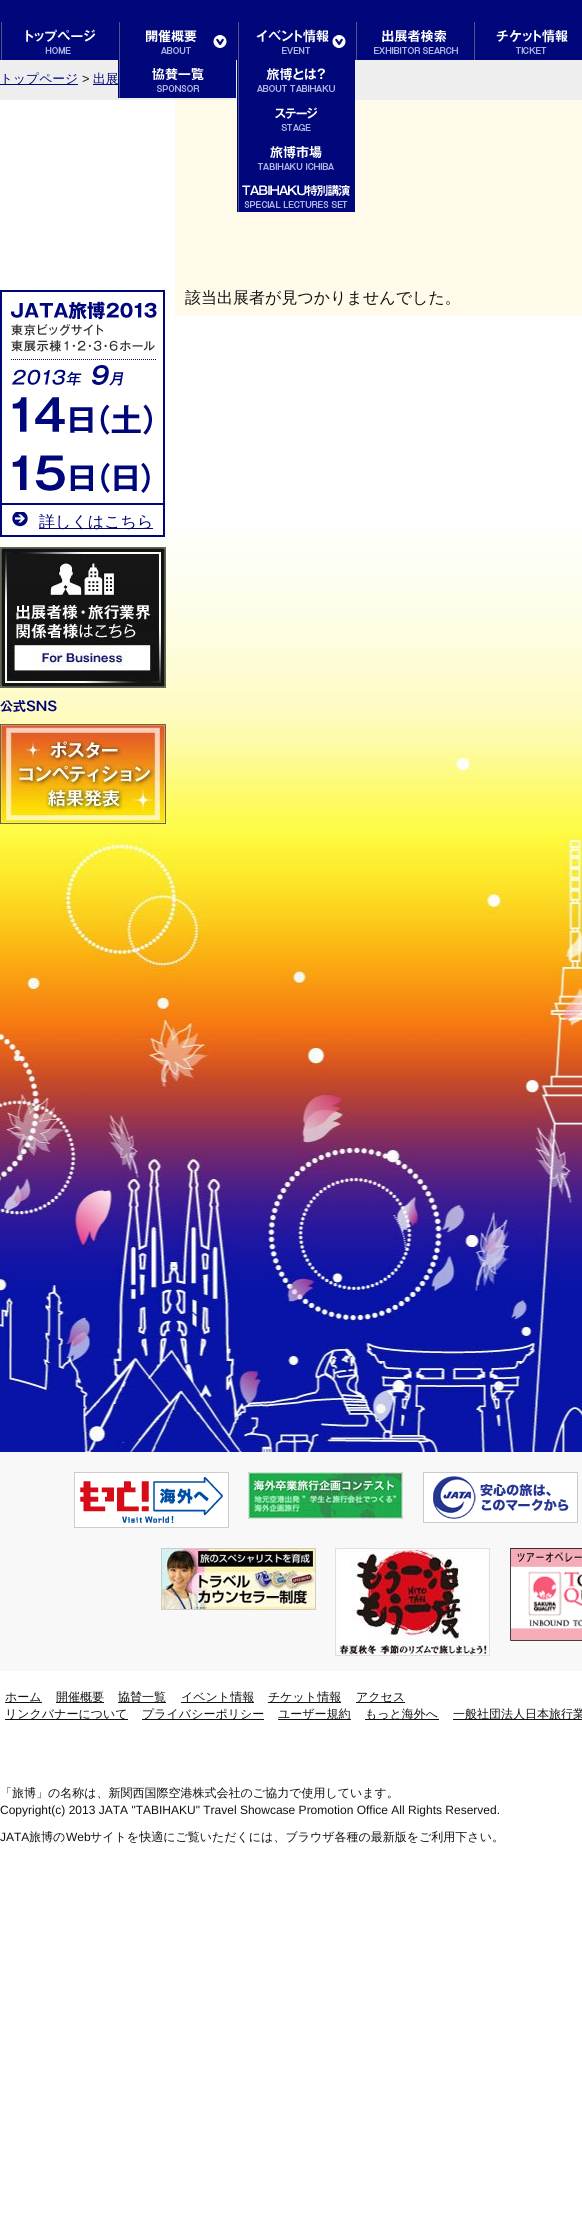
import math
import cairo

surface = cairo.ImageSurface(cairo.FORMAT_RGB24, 582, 2223)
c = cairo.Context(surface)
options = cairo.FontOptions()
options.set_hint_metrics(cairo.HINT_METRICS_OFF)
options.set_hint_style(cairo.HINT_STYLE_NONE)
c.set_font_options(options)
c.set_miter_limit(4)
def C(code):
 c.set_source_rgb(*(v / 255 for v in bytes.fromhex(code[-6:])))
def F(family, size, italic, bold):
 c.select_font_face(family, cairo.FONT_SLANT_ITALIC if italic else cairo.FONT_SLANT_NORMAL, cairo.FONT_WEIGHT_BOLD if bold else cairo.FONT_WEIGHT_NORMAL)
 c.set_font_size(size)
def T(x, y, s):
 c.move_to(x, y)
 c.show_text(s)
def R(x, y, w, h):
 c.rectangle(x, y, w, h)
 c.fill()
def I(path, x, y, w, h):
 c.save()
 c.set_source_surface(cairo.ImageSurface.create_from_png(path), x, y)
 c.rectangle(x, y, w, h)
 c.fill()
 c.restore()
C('ffffff')
c.paint()
C('00077a')
R(0,0,582,22)
I('1.png',0,530,582,922)
R(96,22,486,38)
I('2.png',0,22,96,38)
I('3.png',118,22,109,38)
C('eeeeee')
R(0,60,582,40)
I('4.png',118,60,118,38)
I('5.png',237,22,109,38)
I('6.png',237,60,118,38)
C('fffae9')
R(175,100,407,216)
I('7.png',237,98,118,38)
I('8.png',237,136,118,38)
I('9.png',237,174,118,38)
I('10.png',355,22,103,38)
I('11.png',473,22,95,38)
C('00077a')
R(0,84,78,1)
F('WenQuanYi Zen Hei Medium',12.75,0,0)
T(0,83,'トップページ')
F('Liberation Sans',12.75,0,0)
C('111111')
T(82,83,'>')
C('00077a')
R(93,84,25,1)
F('WenQuanYi Zen Hei Medium',12.75,0,0)
T(93,83,'出展')
c.save()
c.rectangle(185,290,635,16)
c.clip()
F('WenQuanYi Zen Hei Medium',16,0,0)
C('111111')
T(185,303,'該当出展者が見つかりませんでした。')
c.restore()
I('12.png',0,290,165,215)
C('ffffff')
R(2,530,161,5)
C('00077a')
R(163,505,2,32)
R(0,535,165,2)
R(0,505,2,32)
I('13.png',12,512,16,15)
R(39,528,114,1)
F('WenQuanYi Zen Hei Medium',16,0,0)
T(39,527,'詳しくはこちら')
I('14.png',0,547,166,141)
I('15.png',0,700,57,13)
I('16.png',0,724,166,100)
C('f8f8f8')
R(0,1452,582,219)
I('17.png',74,1472,155,56)
I('18.png',248,1472,155,47)
I('19.png',423,1472,155,51)
I('20.png',161,1548,155,62)
I('21.png',335,1548,155,108)
I('22.png',510,1548,72,93)
C('111111')
R(5,1702,37,1)
F('WenQuanYi Zen Hei Medium',12,0,0)
T(5,1701,'ホーム')
R(56,1702,48,1)
T(56,1701,'開催概要')
R(118,1702,48,1)
T(118,1701,'協賛一覧')
R(181,1702,73,1)
T(181,1701,'イベント情報')
R(268,1702,73,1)
T(268,1701,'チケット情報')
R(356,1702,49,1)
T(356,1701,'アクセス')
R(5,1719,123,1)
T(5,1718,'リンクバナーについて')
R(142,1719,122,1)
T(142,1718,'プライバシーポリシー')
R(278,1719,73,1)
T(278,1718,'ユーザー規約')
R(365,1719,74,1)
T(365,1718,'もっと海外へ')
R(453,1719,129,1)
T(453,1718,'一般社団法人日本旅行業')
T(0,1797,'「旅博」の名称は、新関西国際空港株式会社のご協力で使用しています。')
F('Liberation Sans',12,0,0)
T(0,1814,'Copyright(c) 2013 JATA "TABIHAKU" Travel Showcase Promotion Office All Rights Reserved.')
T(0,1841,'JATA')
F('WenQuanYi Zen Hei Medium',12,0,0)
T(29,1841,'旅博の')
F('Liberation Sans',12,0,0)
T(66,1841,'Web')
F('WenQuanYi Zen Hei Medium',12,0,0)
T(90,1841,'サイトを快適にご覧いただくには、ブラウザ各種の最新版をご利用下さい。')
surface.write_to_png('o.png')
